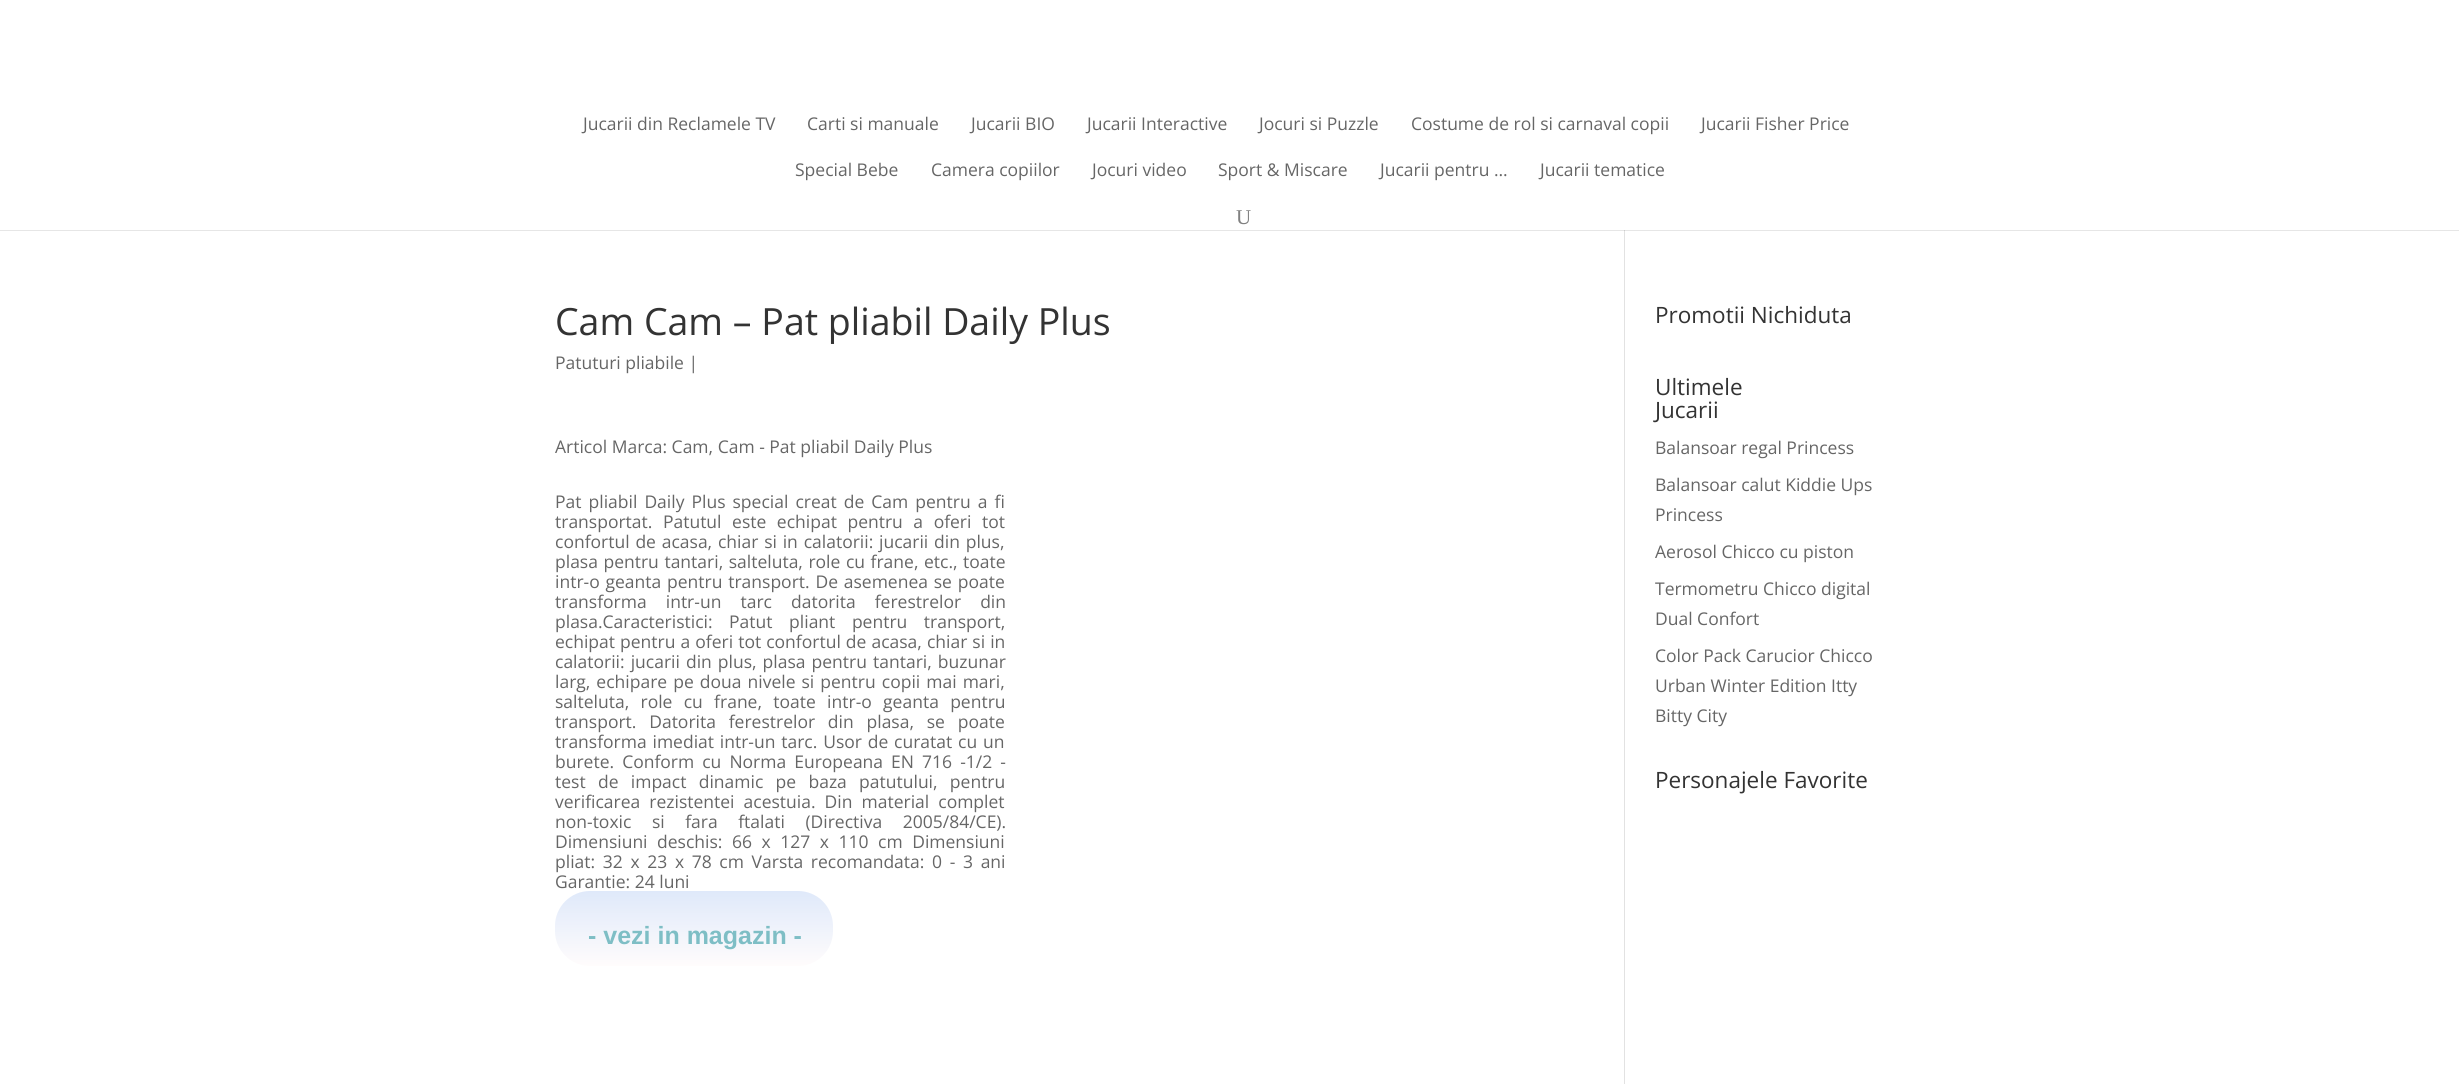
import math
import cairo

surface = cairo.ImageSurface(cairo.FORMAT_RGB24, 2459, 1084)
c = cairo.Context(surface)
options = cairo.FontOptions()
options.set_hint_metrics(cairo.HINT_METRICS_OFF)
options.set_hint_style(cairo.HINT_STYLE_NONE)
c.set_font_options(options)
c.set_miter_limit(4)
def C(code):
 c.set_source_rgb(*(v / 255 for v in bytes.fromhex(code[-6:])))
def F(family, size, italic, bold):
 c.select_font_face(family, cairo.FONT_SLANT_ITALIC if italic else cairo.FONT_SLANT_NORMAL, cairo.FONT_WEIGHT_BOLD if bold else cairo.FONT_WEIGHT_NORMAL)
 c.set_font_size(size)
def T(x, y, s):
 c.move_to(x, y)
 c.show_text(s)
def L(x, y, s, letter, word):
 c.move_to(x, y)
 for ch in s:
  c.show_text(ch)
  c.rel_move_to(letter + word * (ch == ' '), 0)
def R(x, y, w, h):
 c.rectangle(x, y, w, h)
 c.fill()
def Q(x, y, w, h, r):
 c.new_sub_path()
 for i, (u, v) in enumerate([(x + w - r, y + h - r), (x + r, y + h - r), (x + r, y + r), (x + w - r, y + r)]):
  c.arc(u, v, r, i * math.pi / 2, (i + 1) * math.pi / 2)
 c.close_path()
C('ffffff')
c.paint()
C('e6e6e6')
R(0,230,2459,1)
F('Open Sans',17.5,0,0)
C('666666')
T(583,130,'Jucarii din Reclamele TV')
T(807,130,'Carti si manuale')
T(971,130,'Jucarii BIO')
T(1087,130,'Jucarii Interactive')
T(1259,130,'Jocuri si Puzzle')
T(1411,130,'Costume de rol si carnaval copii')
T(1701,130,'Jucarii Fisher Price')
T(795,176,'Special Bebe')
T(931,176,'Camera copiilor')
T(1092,176,'Jocuri video')
T(1218,176,'Sport & Miscare')
T(1380,176,'Jucarii pentru …')
T(1540,176,'Jucarii tematice')
F('Liberation Serif',21,0,0)
C('808080')
T(1236,224,'U')
C('e2e2e2')
R(1624,230,1,854)
C('cbcbcb')
R(1624,230,1,1)
F('Open Sans',37.5,0,0)
C('333333')
T(555,335,'Cam Cam – Pat pliabil Daily Plus')
F('Open Sans',17.5,0,0)
C('666666')
T(555,369,'Patuturi pliabile |')
T(555,453,'Articol Marca: Cam, Cam - Pat pliabil Daily Plus')
L(555,508,'Pat pliabil Daily Plus special creat de Cam pentru a fi',0,2.5)
L(555,528,'transportat. Patutul este echipat pentru a oferi tot',0,6)
L(555,548,'confortul de acasa, chiar si in calatorii: jucarii din plus,',0,1.25)
L(555,568,'plasa pentru tantari, salteluta, role cu frane, etc., toate',0,1)
L(555,588,'intr-o geanta pentru transport. De asemenea se poate',0,1.25)
L(555,608,'transforma intr-un tarc datorita ferestrelor din',0,14.5)
L(555,628,'plasa.Caracteristici: Patut pliant pentru transport,',0,12)
L(555,648,'echipat pentru a oferi tot confortul de acasa, chiar si in',0,.5)
L(555,668,'calatorii: jucarii din plus, plasa pentru tantari, buzunar',0,1.5)
L(555,688,'larg, echipare pe doua nivele si pentru copii mai mari,',0,1.5)
L(555,708,'salteluta, role cu frane, toate intr-o geanta pentru',0,6.75)
L(555,728,'transport. Datorita ferestrelor din plasa, se poate',0,8.25)
L(555,748,'transforma imediat intr-un tarc. Usor de curatat cu un',0,1.25)
L(555,768,'burete. Conform cu Norma Europeana EN 716 -1/2 -',0,3.5)
L(555,788,'test de impact dinamic pe baza patutului, pentru',0,7.75)
L(555,808,'verificarea rezistentei acestuia. Din material complet',0,4.5)
L(555,828,'non-toxic si fara ftalati (Directiva 2005/84/CE).',0,16)
L(555,848,'Dimensiuni deschis: 66 x 127 x 110 cm Dimensiuni',0,5)
L(555,868,'pliat: 32 x 23 x 78 cm Varsta recomandata: 0 - 3 ani',0,3.1)
T(555,888,'Garantie: 24 luni')
gradient = cairo.LinearGradient(694,891,694,966)
gradient.add_color_stop_rgba(0,0.875,0.914,0.98,1)
gradient.add_color_stop_rgba(1,1,0.988,0.988,1)
c.set_source(gradient)
Q(555,891,278,75,35)
c.fill()
F('Liberation Sans',25,0,1)
C('7ebec5')
T(588,944,'- vezi in magazin -')
F('Open Sans',22.5,0,0)
C('333333')
T(1655,323,'Promotii Nichiduta')
T(1655,395,'Ultimele')
T(1655,418,'Jucarii')
F('Open Sans',17.5,0,0)
C('666666')
T(1655,454,'Balansoar regal Princess')
T(1655,491,'Balansoar calut Kiddie Ups')
T(1655,521,'Princess')
T(1655,558,'Aerosol Chicco cu piston')
T(1655,595,'Termometru Chicco digital')
T(1655,625,'Dual Confort')
T(1655,662,'Color Pack Carucior Chicco')
T(1655,692,'Urban Winter Edition Itty')
T(1655,722,'Bitty City')
F('Open Sans',22.5,0,0)
C('333333')
T(1655,788,'Personajele Favorite')
surface.write_to_png('o.png')
